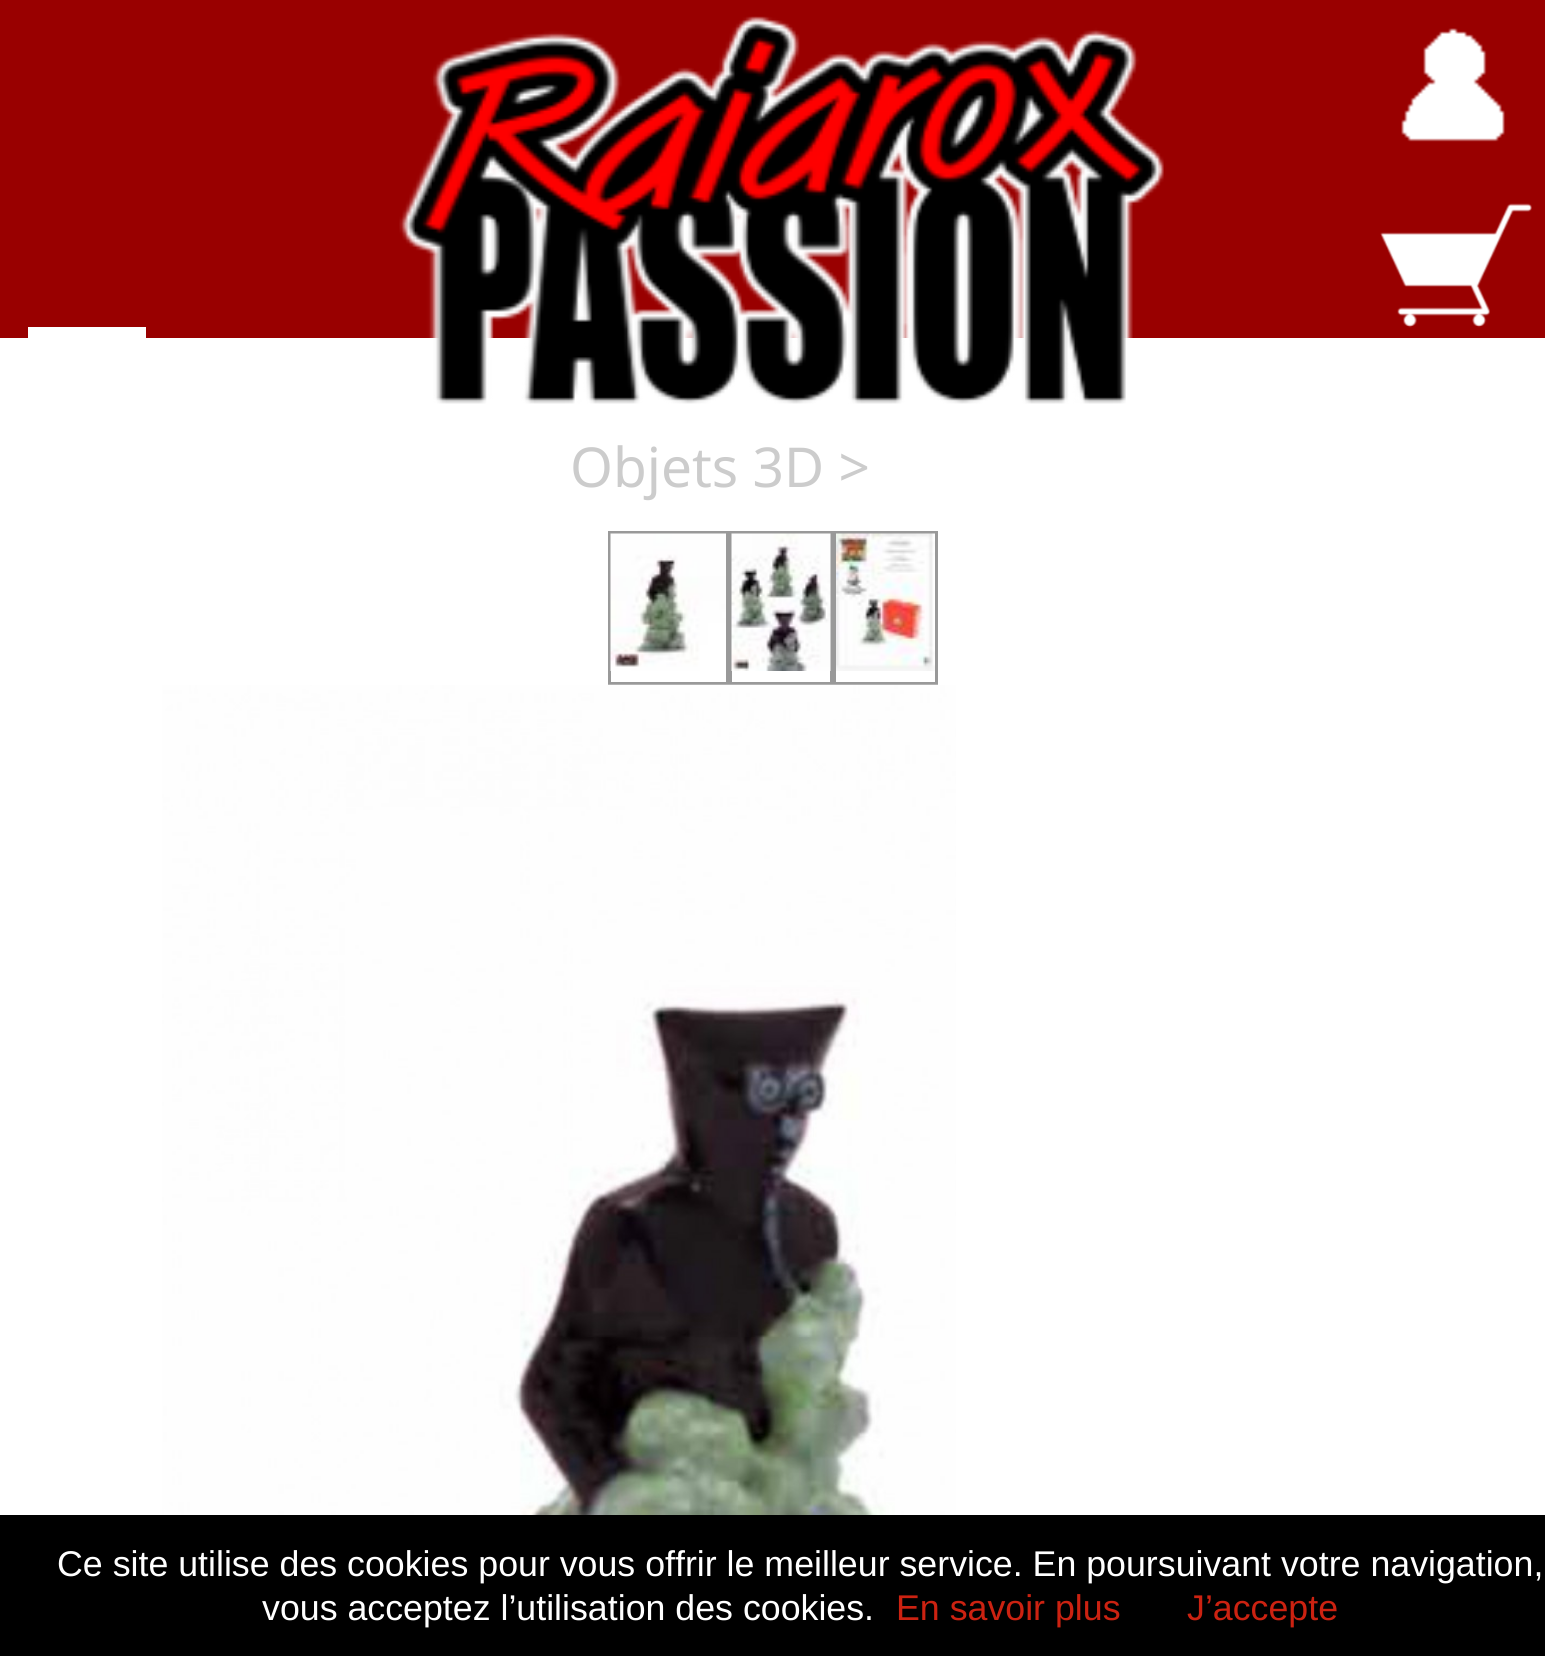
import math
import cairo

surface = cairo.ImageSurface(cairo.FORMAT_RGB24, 1545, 1656)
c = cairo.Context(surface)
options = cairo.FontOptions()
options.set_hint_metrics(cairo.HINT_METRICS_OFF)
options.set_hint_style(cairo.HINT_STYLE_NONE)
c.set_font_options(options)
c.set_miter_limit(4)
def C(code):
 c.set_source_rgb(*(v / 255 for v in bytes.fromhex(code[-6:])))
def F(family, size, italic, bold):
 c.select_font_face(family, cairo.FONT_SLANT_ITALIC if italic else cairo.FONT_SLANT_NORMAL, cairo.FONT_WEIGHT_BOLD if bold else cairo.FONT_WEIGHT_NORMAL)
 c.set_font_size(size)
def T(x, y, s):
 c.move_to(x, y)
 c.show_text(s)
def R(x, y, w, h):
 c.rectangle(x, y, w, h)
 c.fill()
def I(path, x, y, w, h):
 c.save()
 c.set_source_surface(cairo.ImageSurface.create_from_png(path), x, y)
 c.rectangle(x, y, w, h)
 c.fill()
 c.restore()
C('ffffff')
c.paint()
C('990000')
R(0,0,1545,338)
I('1.png',399,16,765,388)
I('2.png',1401,28,104,114)
I('3.png',1380,203,152,125)
C('ffffff')
R(28,327,118,11)
F('Noto Sans',55,0,0)
C('cccccc')
T(570,487,'Objets 3D >')
c.rectangle(609.5,532.5,118,151)
C('999999')
c.set_line_width(3)
c.stroke()
I('4.png',610,533,116,138)
c.rectangle(730.5,532.5,101,151)
c.stroke()
I('5.png',731,533,100,138)
c.rectangle(834.5,532.5,102,151)
c.stroke()
I('6.png',836,533,99,138)
I('7.png',162,684,794,831)
C('000000')
R(0,1515,1545,141)
F('Liberation Sans',35.75,0,0)
C('ffffff')
T(57,1576,'Ce site utilise des cookies pour vous offrir le meilleur service. En poursuivant votre navigation,')
T(262,1620,'vous acceptez l’utilisation des cookies.')
C('cc2211')
T(896,1620,'En savoir plus')
T(1187,1620,'J’accepte')
surface.write_to_png('o.png')
